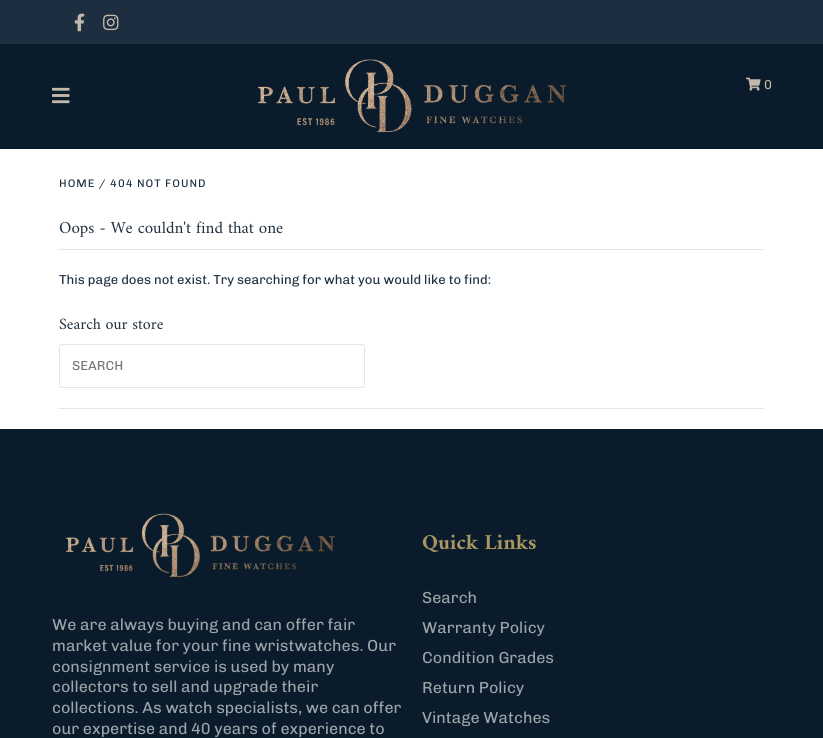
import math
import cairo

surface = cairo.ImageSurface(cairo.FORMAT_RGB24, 823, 738)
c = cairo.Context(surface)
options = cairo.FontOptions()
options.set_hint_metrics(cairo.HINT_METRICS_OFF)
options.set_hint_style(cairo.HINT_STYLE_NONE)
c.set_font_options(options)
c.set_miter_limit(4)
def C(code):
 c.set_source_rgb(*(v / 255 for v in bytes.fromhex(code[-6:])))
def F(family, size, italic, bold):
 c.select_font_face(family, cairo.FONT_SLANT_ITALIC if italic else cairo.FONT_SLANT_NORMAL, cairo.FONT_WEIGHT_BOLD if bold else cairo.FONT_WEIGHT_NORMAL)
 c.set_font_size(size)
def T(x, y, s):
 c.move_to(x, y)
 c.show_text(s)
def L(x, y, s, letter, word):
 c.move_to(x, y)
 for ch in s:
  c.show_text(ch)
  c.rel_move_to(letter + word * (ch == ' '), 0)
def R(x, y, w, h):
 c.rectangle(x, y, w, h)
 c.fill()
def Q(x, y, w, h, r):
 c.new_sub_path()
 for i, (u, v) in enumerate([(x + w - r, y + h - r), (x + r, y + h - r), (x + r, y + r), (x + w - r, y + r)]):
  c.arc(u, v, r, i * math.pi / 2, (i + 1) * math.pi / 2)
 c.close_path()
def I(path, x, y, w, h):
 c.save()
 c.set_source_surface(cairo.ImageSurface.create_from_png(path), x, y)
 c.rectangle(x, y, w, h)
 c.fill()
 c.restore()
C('ffffff')
c.paint()
C('0a1c2b')
R(0,44,823,105)
C('1c2e3f')
R(0,0,823,44)
I('1.png',74,13,11,19)
I('2.png',103,14,16,17)
I('3.png',258,59,309,74)
I('4.png',746,77,15,14)
F('Chivo',13,0,0)
C('c2b8ac')
T(764,89,'0')
I('5.png',52,87,18,17)
F('Chivo',11,0,0)
C('1c2e3f')
L(59,187,'HOME / 404 NOT FOUND',1,0)
C('e5e5e5')
R(59,249,705,1)
F('Amiri',17,0,0)
C('1c2e3f')
T(59,233,'Oops - We couldn\'t find that one')
F('Chivo',13,0,0)
T(59,284,'This page does not exist. Try searching for what you would like to find:')
C('e5e5e5')
R(59,408,705,1)
F('Amiri',16,0,0)
C('1c2e3f')
T(59,329,'Search our store')
Q(59.5,344.5,305,43,2.5)
C('e5e5e5')
c.set_line_width(1)
c.stroke()
F('Chivo',13,0,0)
C('757575')
T(72,370,'SEARCH')
C('0a1c2b')
R(0,429,823,309)
I('6.png',66,513,269,65)
F('Chivo',16,0,0)
C('9da4aa')
T(52,630,'We are always buying and can offer fair')
T(52,651,'market value for your fine wristwatches. Our')
T(52,672,'consignment service is used by many')
T(52,692,'collectors to sell and upgrade their')
T(52,713,'collections. As watch specialists, we can offer')
T(52,734,'our expertise and 40 years of experience to')
F('Amiri',21.5,0,1)
C('aa9660')
T(422,549,'Quick Links')
F('Chivo',16,0,0)
C('9da4aa')
T(422,603,'Search')
T(422,633,'Warranty Policy')
T(422,663,'Condition Grades')
T(422,693,'Return Policy')
T(422,723,'Vintage Watches')
surface.write_to_png('o.png')
